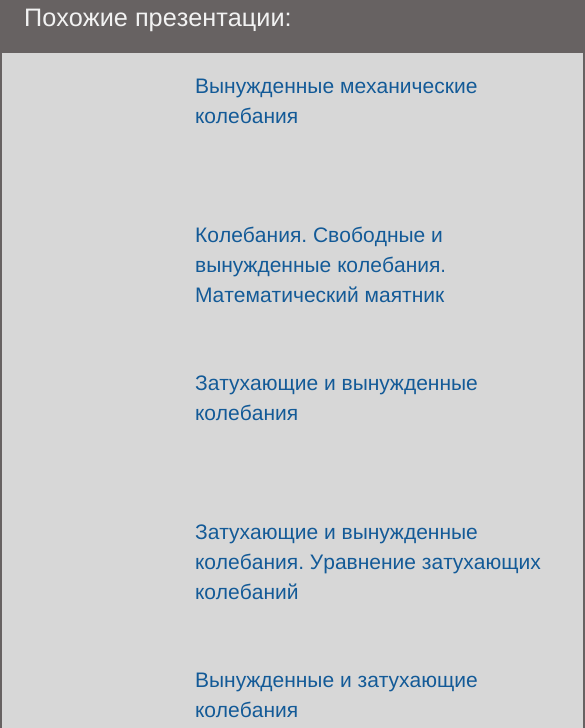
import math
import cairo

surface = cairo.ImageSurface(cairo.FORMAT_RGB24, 585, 728)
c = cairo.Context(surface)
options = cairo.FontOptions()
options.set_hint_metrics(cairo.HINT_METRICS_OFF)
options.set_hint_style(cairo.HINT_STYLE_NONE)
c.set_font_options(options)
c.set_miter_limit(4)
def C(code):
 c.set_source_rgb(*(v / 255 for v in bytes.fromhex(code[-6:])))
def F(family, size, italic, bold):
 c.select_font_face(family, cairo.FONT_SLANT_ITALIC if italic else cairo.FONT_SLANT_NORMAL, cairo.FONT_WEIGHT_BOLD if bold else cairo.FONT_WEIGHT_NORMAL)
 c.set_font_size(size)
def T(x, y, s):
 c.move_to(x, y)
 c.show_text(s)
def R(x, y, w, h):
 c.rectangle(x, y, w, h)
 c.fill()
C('d7d7d7')
c.paint()
c.rectangle(1,-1,583,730)
C('676262')
c.stroke()
R(2,0,581,53)
F('Liberation Sans',25.25,0,0)
C('f2f2f2')
T(24,26,'Похожие презентации:')
F('Liberation Sans',21,0,0)
C('135a97')
T(195,93,'Вынужденные механические')
T(195,123,'колебания')
T(195,242,'Колебания. Свободные и')
T(195,272,'вынужденные колебания.')
T(195,302,'Математический маятник')
T(195,390,'Затухающие и вынужденные')
T(195,420,'колебания')
T(195,539,'Затухающие и вынужденные')
T(195,569,'колебания. Уравнение затухающих')
T(195,599,'колебаний')
T(195,687,'Вынужденные и затухающие')
T(195,717,'колебания')
surface.write_to_png('o.png')
